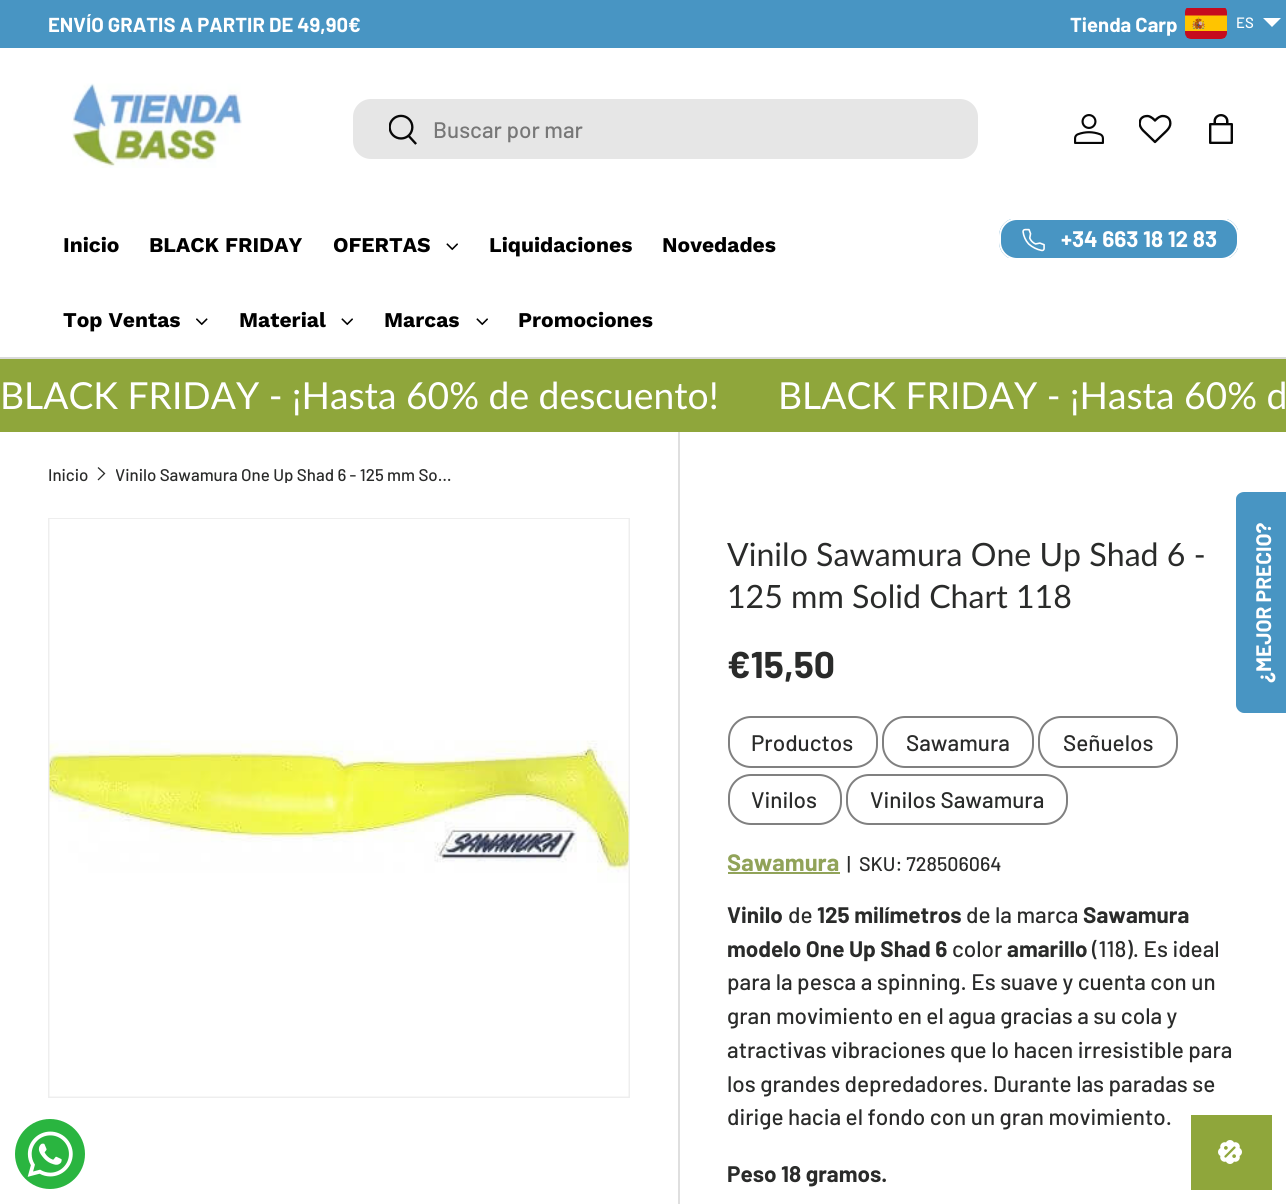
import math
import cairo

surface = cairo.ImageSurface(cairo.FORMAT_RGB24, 1286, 1204)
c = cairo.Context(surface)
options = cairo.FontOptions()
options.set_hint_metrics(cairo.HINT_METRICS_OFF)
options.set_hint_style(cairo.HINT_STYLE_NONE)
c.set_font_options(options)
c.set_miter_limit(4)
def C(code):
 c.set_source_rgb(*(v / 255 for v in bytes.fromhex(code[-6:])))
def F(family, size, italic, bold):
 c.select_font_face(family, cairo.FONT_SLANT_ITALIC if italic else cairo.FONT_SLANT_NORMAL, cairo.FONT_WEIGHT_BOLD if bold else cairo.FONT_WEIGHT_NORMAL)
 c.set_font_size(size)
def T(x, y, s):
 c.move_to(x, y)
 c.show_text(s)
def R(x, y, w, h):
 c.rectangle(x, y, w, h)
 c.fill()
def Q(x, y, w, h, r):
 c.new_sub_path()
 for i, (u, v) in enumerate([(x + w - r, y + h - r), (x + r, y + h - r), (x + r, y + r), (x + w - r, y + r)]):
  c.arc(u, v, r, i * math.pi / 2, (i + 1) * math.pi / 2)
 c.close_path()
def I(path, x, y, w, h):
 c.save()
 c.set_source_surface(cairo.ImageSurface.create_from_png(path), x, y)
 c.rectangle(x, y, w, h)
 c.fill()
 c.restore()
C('ffffff')
c.paint()
C('4895c3')
R(0,0,1286,48)
F('Barlow',20.25,0,1)
C('ffffff')
T(48,32,'ENVÍO GRATIS A PARTIR DE 49,90€')
T(1070,32,'Tienda Carp')
I('1.png',1185,8,42,31)
F('Barlow Medium',15,0,0)
T(1236,28,'ES')
c.new_path()
c.move_to(1263,18)
c.line_to(1281,18)
c.line_to(1272,27)
c.close_path()
c.fill()
C('dadada')
R(0,357,1286,2)
I('2.png',72,83,170,85)
C('e6e6e6')
Q(353,99,625,60,18)
c.fill()
I('3.png',389,114,28,31)
F('Barlow Medium',22.5,0,0)
C('777777')
T(433,138,'Buscar por mar')
I('4.png',1074,114,30,30)
I('5.png',1139,114,33,30)
I('6.png',1209,114,24,30)
F('Work Sans',21,0,1)
C('000000')
T(63,252,'Inicio')
T(149,252,'BLACK FRIDAY')
T(333,252,'OFERTAS')
I('7.png',446,243,12,8)
T(489,252,'Liquidaciones')
T(662,252,'Novedades')
T(63,327,'Top Ventas')
I('8.png',196,318,12,8)
T(239,327,'Material')
I('7.png',341,318,12,8)
T(384,327,'Marcas')
I('7.png',476,318,12,8)
T(518,327,'Promociones')
c.save()
Q(999,218,240,42,18)
c.clip()
gradient = cairo.LinearGradient(543,154,1221,323)
gradient.add_color_stop_rgba(.6,0.435,0.675,0.816,1)
gradient.add_color_stop_rgba(.6,0.282,0.584,0.765,1)
gradient.add_color_stop_rgba(1,0.282,0.584,0.765,1)
c.set_source(gradient)
R(999,219,239,39)
c.restore()
Q(1000,219,238,40,17)
C('ffffff')
c.stroke()
I('9.png',1022,228,23,24)
F('Barlow',22.5,0,1)
T(1061,247,'+34 663 18 12 83')
C('8fa63b')
R(0,359,1286,73)
F('Lato',37.25,0,0)
C('ffffff')
T(0,409,'BLACK FRIDAY - ¡Hasta 60% de descuento!')
T(778,409,'BLACK FRIDAY - ¡Hasta 60% d')
F('Barlow Medium',16.9,0,0)
C('2a2b2a')
T(48,481,'Inicio')
c.new_path()
c.move_to(98,467.5)
c.line_to(104.5,473.5)
c.line_to(98,480)
c.set_line_width(1.3)
c.stroke()
c.save()
c.rectangle(116,467,337,16)
c.clip()
T(115,481,'Vinilo Sawamura One Up Shad 6 - 125 mm So…')
c.restore()
c.rectangle(49,519,580,578)
C('eeeeee')
c.set_line_width(2)
c.stroke()
I('10.png',49,519,580,578)
C('dfdfdf')
R(678,432,2,772)
F('Lato',32.1,0,0)
C('2a2b2a')
T(727,566,'Vinilo Sawamura One Up Shad 6 -')
T(727,608,'125 mm Solid Chart 118')
F('Barlow',37.25,0,1)
T(727,678,'€15,50')
Q(729,717,148,50,22)
C('808080')
c.stroke()
F('Barlow Medium',22.5,0,0)
C('2a2b2a')
T(751,751,'Productos')
Q(883,717,150,50,22)
C('808080')
c.stroke()
C('2a2b2a')
T(906,751,'Sawamura')
Q(1039,717,138,50,22)
C('808080')
c.stroke()
C('2a2b2a')
T(1063,751,'Señuelos')
Q(729,775,112,49,22)
C('808080')
c.stroke()
C('2a2b2a')
T(751,808,'Vinilos')
Q(847,775,220,49,22)
C('808080')
c.stroke()
C('2a2b2a')
T(870,808,'Vinilos Sawamura')
F('Barlow',23.75,0,1)
C('91a359')
T(727,871,'Sawamura')
R(728,872,112,2)
F('Barlow Medium',19.75,0,0)
C('2a2b2a')
T(847,871,'|')
T(859,871,'SKU: 728506064')
F('Barlow',22.5,0,1)
T(727,923,'Vinilo')
F('Barlow Medium',22.5,0,0)
T(788,923,'de')
F('Barlow',22.5,0,1)
T(817,923,'125 milímetros')
F('Barlow Medium',22.5,0,0)
T(966,923,'de la marca')
F('Barlow',22.5,0,1)
T(1083,923,'Sawamura')
T(727,957,'modelo One Up Shad 6')
F('Barlow Medium',22.5,0,0)
T(952,957,'color')
F('Barlow',22.5,0,1)
T(1007,957,'amarillo')
F('Barlow Medium',22.5,0,0)
T(1092,957,'(118). Es ideal')
T(727,990,'para la pesca a spinning. Es suave y cuenta con un')
T(727,1024,'gran movimiento en el agua gracias a su cola y')
T(727,1058,'atractivas vibraciones que lo hacen irresistible para')
T(727,1092,'los grandes depredadores. Durante las paradas se')
T(727,1125,'dirige hacia el fondo con un gran movimiento.')
F('Barlow',22.5,0,1)
T(727,1182,'Peso 18 gramos.')
C('4895c3')
c.new_path()
c.move_to(1236,705)
c.line_to(1236,499)
c.curve_to(1236,495,1240,492,1244,492)
c.line_to(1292,492)
c.line_to(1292,713)
c.line_to(1244,713)
c.curve_to(1240,713,1236,709,1236,705)
c.close_path()
c.fill()
F('Barlow',21,0,1)
C('ffffff')
c.save()
c.translate(1271,683)
c.rotate(-90 * math.pi / 180)
T(0,0,'¿MEJOR PRECIO?')
c.restore()
I('11.png',15,1119,70,70)
C('8fa63b')
R(1191,1115,81,75)
I('12.png',1218,1140,24,24)
surface.write_to_png('o.png')
